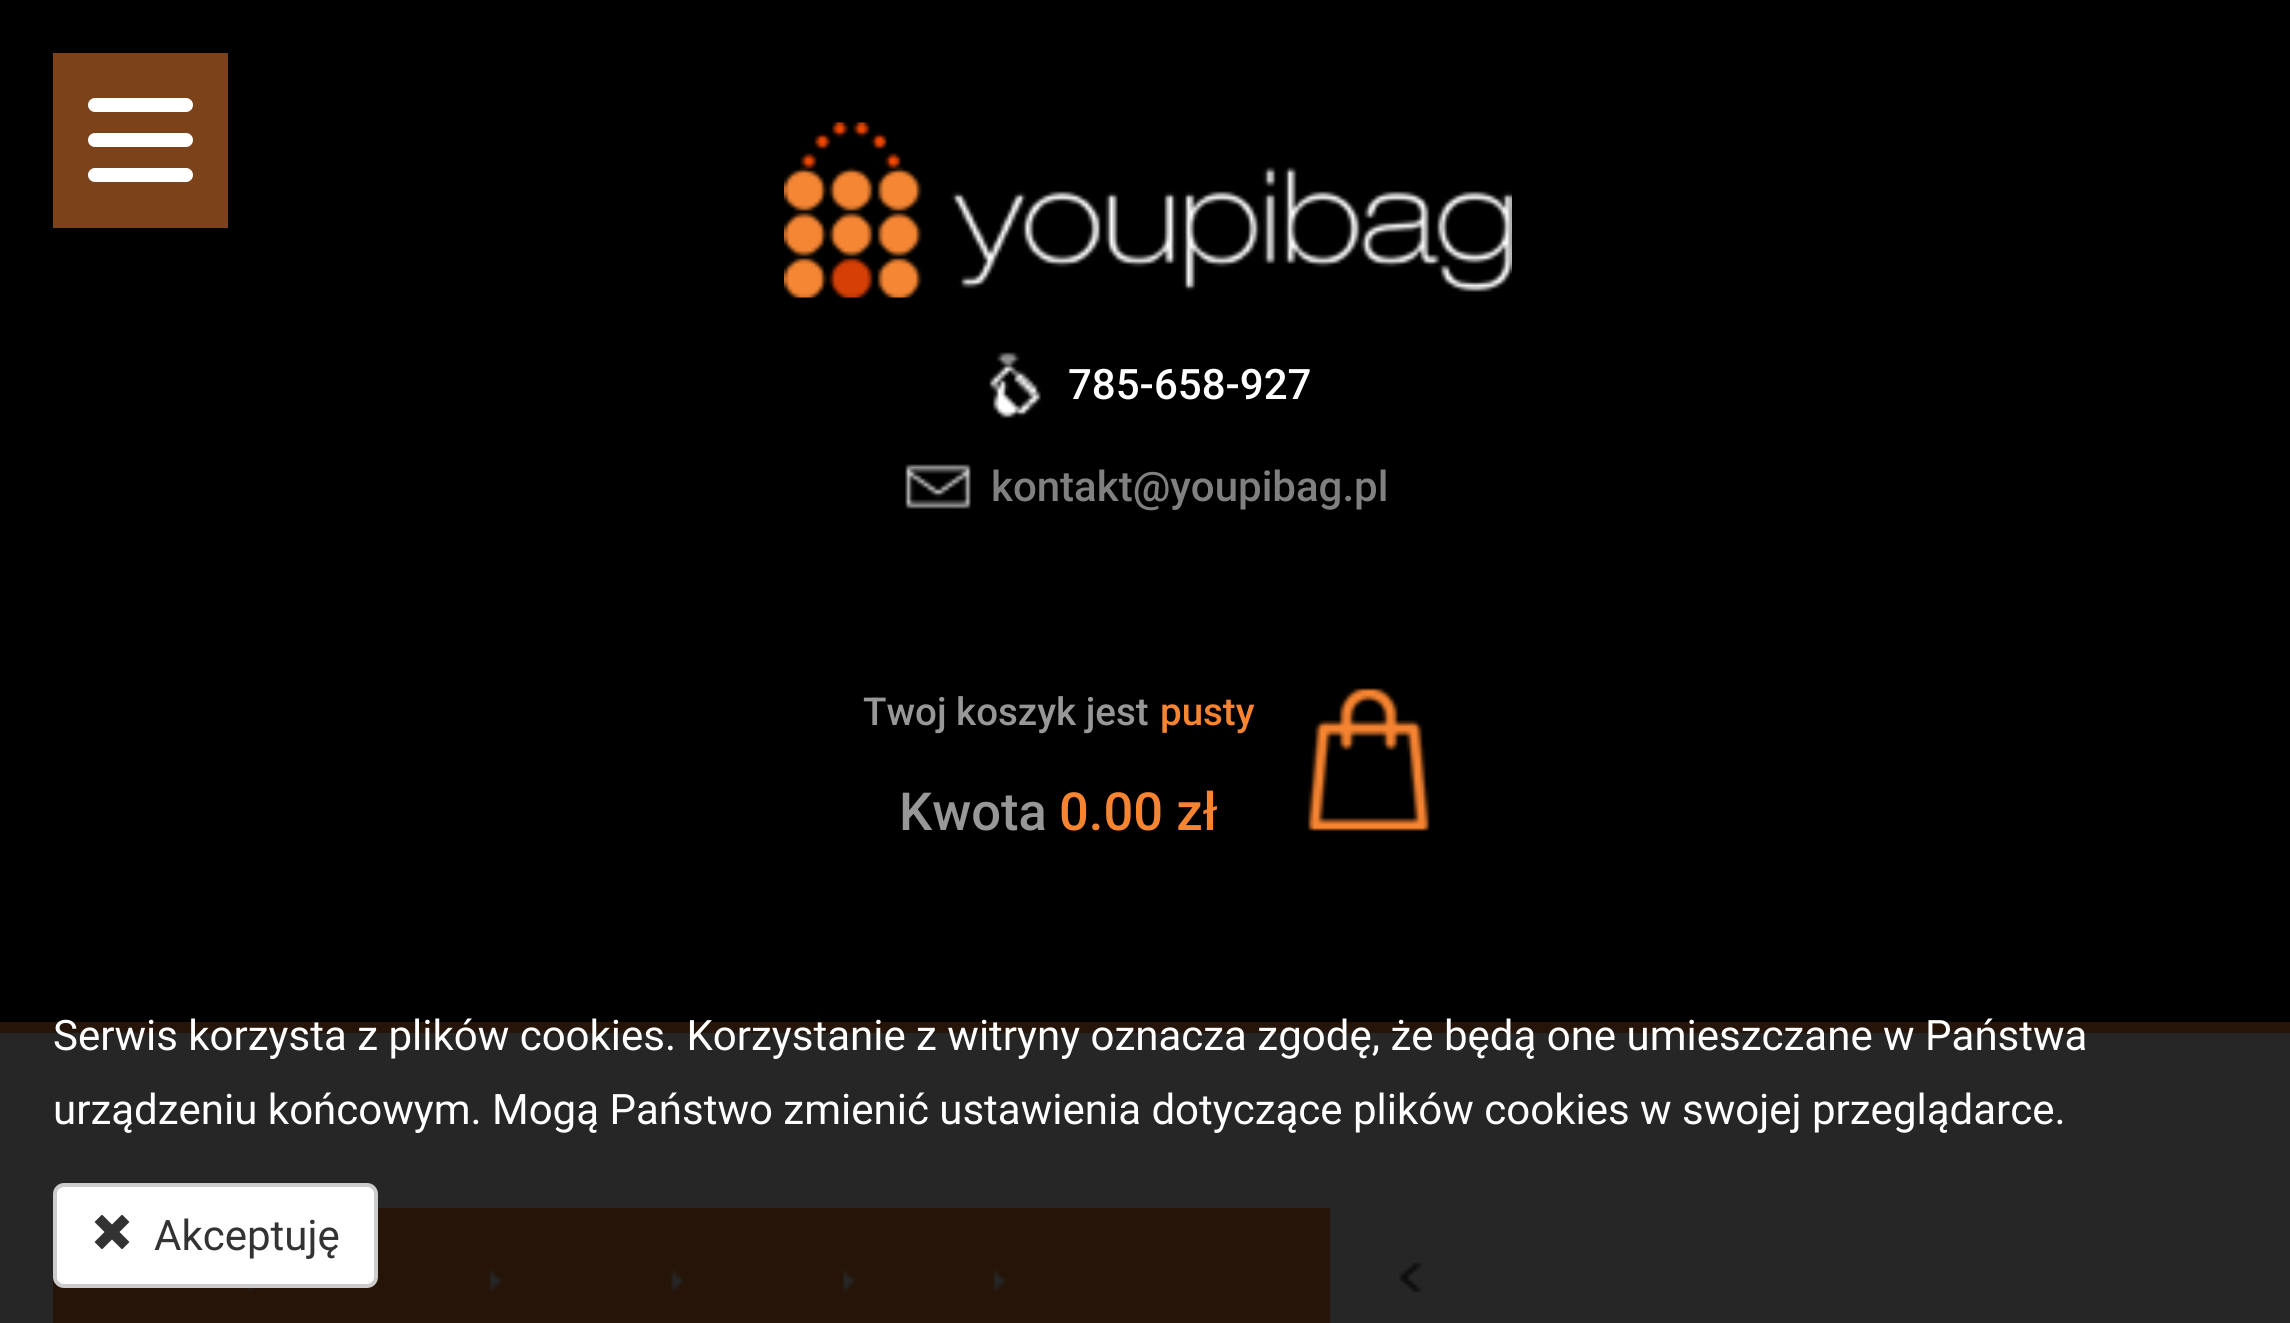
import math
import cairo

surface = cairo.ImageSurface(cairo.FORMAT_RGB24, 2290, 1323)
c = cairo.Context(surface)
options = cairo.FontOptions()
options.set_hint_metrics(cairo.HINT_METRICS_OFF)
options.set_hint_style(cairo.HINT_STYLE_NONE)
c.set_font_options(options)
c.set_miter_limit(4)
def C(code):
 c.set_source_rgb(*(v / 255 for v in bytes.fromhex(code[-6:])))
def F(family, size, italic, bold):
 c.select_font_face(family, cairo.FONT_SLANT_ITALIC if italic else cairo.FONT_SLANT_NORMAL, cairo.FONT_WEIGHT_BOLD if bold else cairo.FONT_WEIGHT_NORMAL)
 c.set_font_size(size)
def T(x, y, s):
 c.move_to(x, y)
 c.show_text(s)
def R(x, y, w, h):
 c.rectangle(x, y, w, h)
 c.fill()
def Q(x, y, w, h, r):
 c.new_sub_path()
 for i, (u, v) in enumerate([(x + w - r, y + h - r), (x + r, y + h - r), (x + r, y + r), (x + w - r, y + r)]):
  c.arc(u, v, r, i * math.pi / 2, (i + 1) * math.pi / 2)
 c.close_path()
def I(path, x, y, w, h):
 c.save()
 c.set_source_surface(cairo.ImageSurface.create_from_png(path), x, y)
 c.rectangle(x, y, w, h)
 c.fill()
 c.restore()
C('ffffff')
c.paint()
C('000000')
R(0,0,2290,1022)
C('7c4219')
R(53,53,175,175)
C('ffffff')
Q(88,133,105,14,7)
c.fill()
Q(88,98,105,14,7)
c.fill()
Q(88,168,105,14,7)
c.fill()
I('1.png',784,122,728,176)
I('2.png',989,352,52,66)
F('Roboto Medium',42,0,0)
T(1068,399,'785-658-927')
I('3.png',905,464,66,45)
C('808080')
T(991,501,'kontakt@youpibag.pl')
I('4.png',1307,688,123,143)
F('Roboto Medium',38.5,0,0)
C('979797')
T(863,725,'Twoj koszyk jest')
C('f78431')
T(1160,725,'pusty')
F('Roboto Medium',52.5,0,0)
C('979797')
T(899,830,'Kwota')
C('f78431')
T(1059,830,'0.00 zł')
R(0,1022,2290,11)
R(53,1208,1277,115)
I('5.png',247,1288,10,5)
I('6.png',488,1269,14,24)
I('7.png',670,1269,14,24)
I('8.png',842,1269,14,24)
I('6.png',992,1269,14,24)
I('9.png',1399,1262,23,31)
c.set_source_rgba(0,0,0,0.85)
R(0,1022,2290,301)
F('Roboto',42,0,0)
C('ffffff')
T(53,1050,'Serwis korzysta z plików cookies. Korzystanie z witryny oznacza zgodę, że będą one umieszczane w Państwa')
T(53,1124,'urządzeniu końcowym. Mogą Państwo zmienić ustawienia dotyczące plików cookies w swojej przeglądarce.')
Q(55,1185,321,101,9)
c.fill_preserve()
C('cccccc')
c.set_line_width(4)
c.stroke()
I('10.png',94,1214,36,36)
C('333333')
T(154,1250,'Akceptuję')
surface.write_to_png('o.png')
